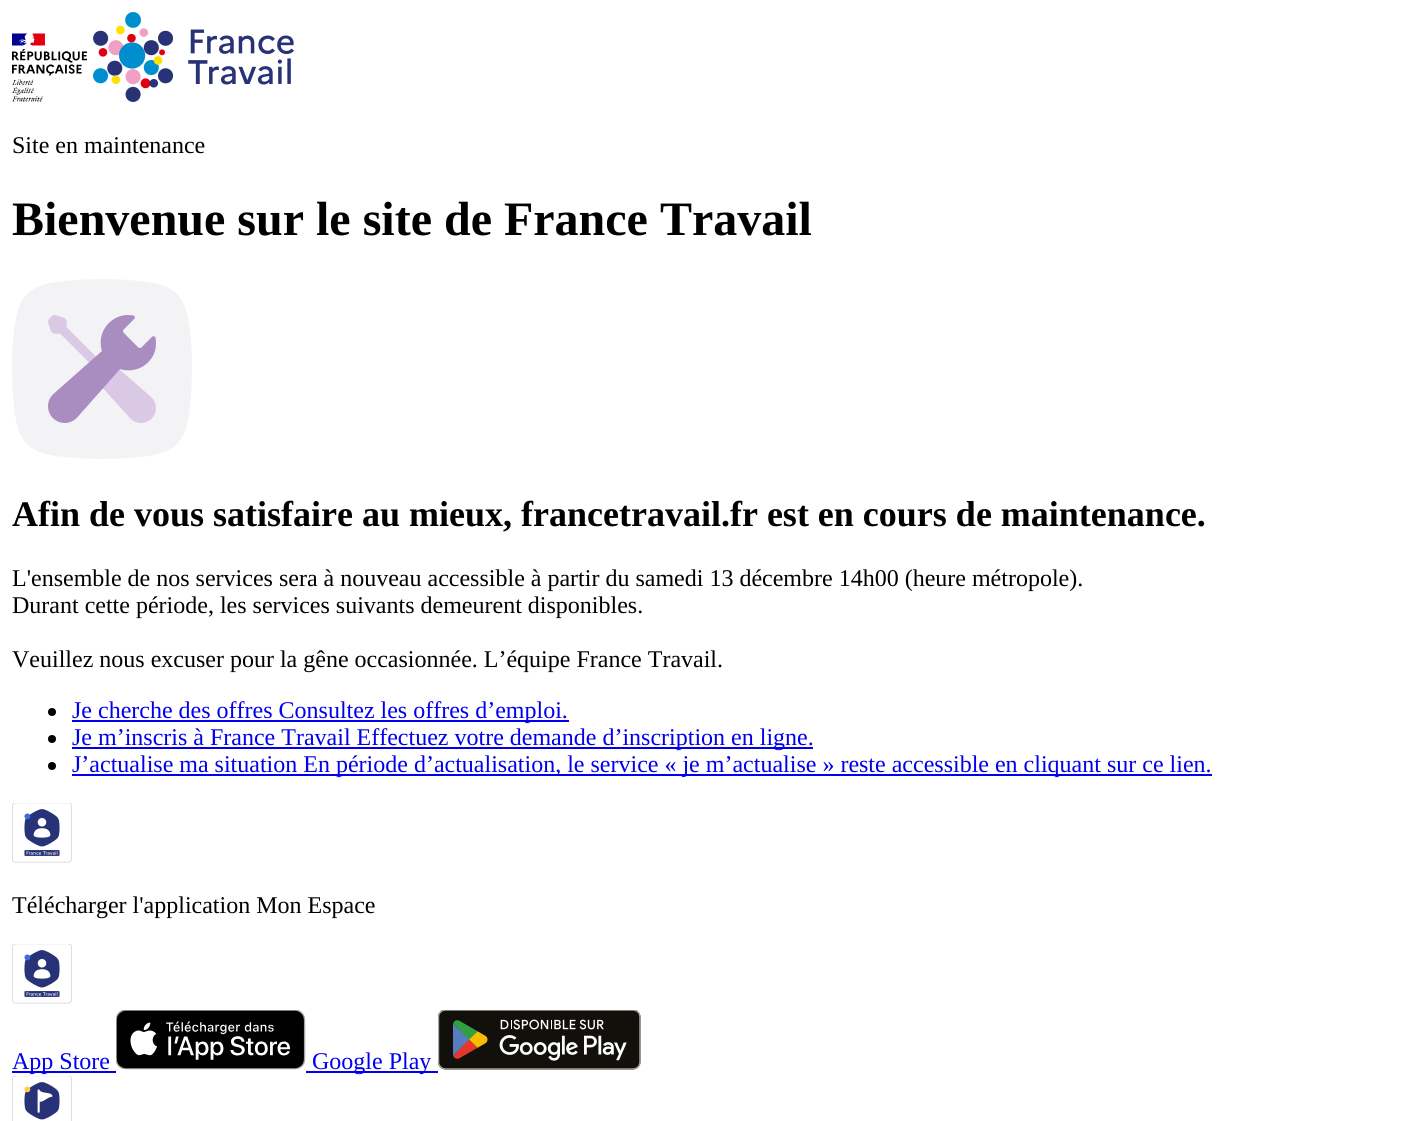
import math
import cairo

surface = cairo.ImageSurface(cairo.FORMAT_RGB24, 1405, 1121)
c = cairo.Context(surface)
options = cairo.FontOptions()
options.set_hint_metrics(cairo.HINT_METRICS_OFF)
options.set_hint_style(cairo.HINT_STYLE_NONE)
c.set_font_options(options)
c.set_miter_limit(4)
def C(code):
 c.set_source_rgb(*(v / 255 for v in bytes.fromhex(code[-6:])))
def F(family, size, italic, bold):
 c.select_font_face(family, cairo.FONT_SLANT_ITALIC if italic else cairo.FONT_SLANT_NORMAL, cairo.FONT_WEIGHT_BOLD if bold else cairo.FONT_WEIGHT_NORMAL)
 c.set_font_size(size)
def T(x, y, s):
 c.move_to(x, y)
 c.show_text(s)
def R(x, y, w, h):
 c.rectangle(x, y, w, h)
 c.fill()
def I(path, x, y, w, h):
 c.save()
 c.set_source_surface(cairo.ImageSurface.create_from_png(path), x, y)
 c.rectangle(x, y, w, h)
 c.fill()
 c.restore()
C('ffffff')
c.paint()
I('1.png',12,33,75,69)
I('2.png',93,12,201,90)
F('Liberation Serif',24,0,0)
C('000000')
T(12,153,'Site en maintenance')
F('Liberation Serif',48,0,1)
T(12,235,'Bienvenue sur le site de France Travail')
I('3.png',12,279,180,180)
F('Liberation Serif',36,0,1)
T(12,526,'Afin de vous satisfaire au mieux, francetravail.fr est en cours de maintenance.')
F('Liberation Serif',24,0,0)
T(12,586,'L\'ensemble de nos services sera à nouveau accessible à partir du samedi 13 décembre 14h00 (heure métropole).')
T(12,613,'Durant cette période, les services suivants demeurent disponibles.')
T(12,667,'Veuillez nous excuser pour la gêne occasionnée. L’équipe France Travail.')
c.new_path()
c.arc(52,712,4,0,2 * math.pi)
c.fill()
C('0000ee')
R(72,720,497,2)
T(72,718,'Je cherche des offres Consultez les offres d’emploi.')
C('000000')
c.new_path()
c.arc(52,739,4,0,2 * math.pi)
c.fill()
C('0000ee')
R(72,747,741,2)
T(72,745,'Je m’inscris à France Travail Effectuez votre demande d’inscription en ligne.')
C('000000')
c.new_path()
c.arc(52,766,4,0,2 * math.pi)
c.fill()
C('0000ee')
R(72,774,1140,2)
T(72,772,'J’actualise ma situation En période d’actualisation, le service « je m’actualise » reste accessible en cliquant sur ce lien.')
I('4.png',12,803,60,60)
C('000000')
T(12,913,'Télécharger l\'application Mon Espace')
I('4.png',12,944,60,60)
C('0000ee')
R(12,1071,104,2)
T(12,1069,'App Store')
R(306,1071,132,2)
I('5.png',116,1010,190,60)
T(312,1069,'Google Play')
I('6.png',438,1010,203,60)
I('7.png',12,1076,60,45)
surface.write_to_png('o.png')
